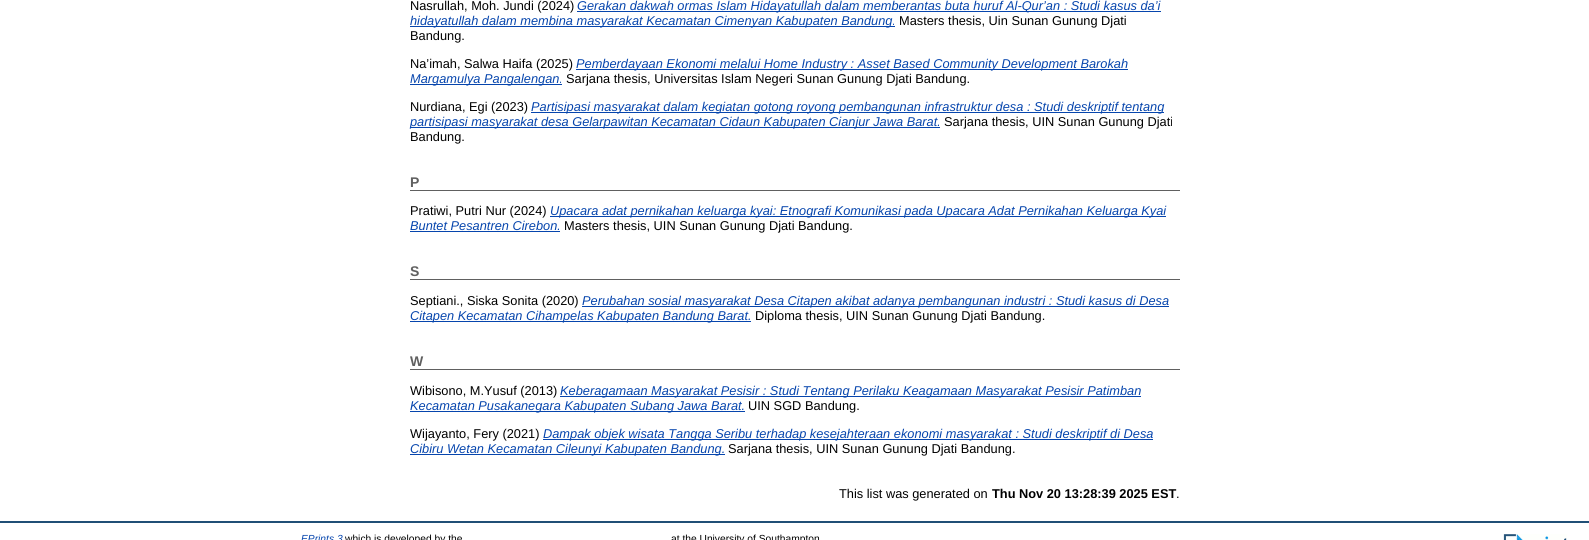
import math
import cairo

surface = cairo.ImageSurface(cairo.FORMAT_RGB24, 1589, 540)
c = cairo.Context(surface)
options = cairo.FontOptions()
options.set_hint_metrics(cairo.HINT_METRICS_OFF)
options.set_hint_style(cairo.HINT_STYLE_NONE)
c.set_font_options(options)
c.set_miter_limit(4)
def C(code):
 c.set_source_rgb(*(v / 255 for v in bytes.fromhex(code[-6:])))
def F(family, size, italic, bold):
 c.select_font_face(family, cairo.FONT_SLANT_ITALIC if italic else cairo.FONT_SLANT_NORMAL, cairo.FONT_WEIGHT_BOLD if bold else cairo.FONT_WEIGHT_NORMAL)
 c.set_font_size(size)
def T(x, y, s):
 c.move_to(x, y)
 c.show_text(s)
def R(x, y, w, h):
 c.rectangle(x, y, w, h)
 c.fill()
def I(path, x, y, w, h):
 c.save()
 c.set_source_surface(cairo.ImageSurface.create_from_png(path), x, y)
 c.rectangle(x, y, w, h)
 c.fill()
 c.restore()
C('ffffff')
c.paint()
F('Liberation Sans',12.8,0,0)
C('000000')
T(410,10,'Nasrullah, Moh. Jundi (2024)')
C('0645ad')
R(577,11,584,1)
F('Liberation Sans',12.8,1,0)
T(577,10,'Gerakan dakwah ormas Islam Hidayatullah dalam memberantas buta huruf Al-Qur’an : Studi kasus da’i')
R(410,26,485,1)
T(410,25,'hidayatullah dalam membina masyarakat Kecamatan Cimenyan Kabupaten Bandung.')
F('Liberation Sans',12.8,0,0)
C('000000')
T(899,25,'Masters thesis, Uin Sunan Gunung Djati')
T(410,40,'Bandung.')
T(410,68,'Na’imah, Salwa Haifa (2025)')
C('0645ad')
R(576,69,552,1)
F('Liberation Sans',12.8,1,0)
T(576,68,'Pemberdayaan Ekonomi melalui Home Industry : Asset Based Community Development Barokah')
R(410,84,152,1)
T(410,83,'Margamulya Pangalengan.')
F('Liberation Sans',12.8,0,0)
C('000000')
T(566,83,'Sarjana thesis, Universitas Islam Negeri Sunan Gunung Djati Bandung.')
T(410,111,'Nurdiana, Egi (2023)')
C('0645ad')
R(531,112,633,1)
F('Liberation Sans',12.8,1,0)
T(531,111,'Partisipasi masyarakat dalam kegiatan gotong royong pembangunan infrastruktur desa : Studi deskriptif tentang')
R(410,127,530,1)
T(410,126,'partisipasi masyarakat desa Gelarpawitan Kecamatan Cidaun Kabupaten Cianjur Jawa Barat.')
F('Liberation Sans',12.8,0,0)
C('000000')
T(944,126,'Sarjana thesis, UIN Sunan Gunung Djati')
T(410,141,'Bandung.')
C('606060')
R(410,190,770,1)
F('Liberation Sans',14,0,1)
T(410,187,'P')
F('Liberation Sans',12.8,0,0)
C('000000')
T(410,215,'Pratiwi, Putri Nur (2024)')
C('0645ad')
R(550,216,616,1)
F('Liberation Sans',12.8,1,0)
T(550,215,'Upacara adat pernikahan keluarga kyai: Etnografi Komunikasi pada Upacara Adat Pernikahan Keluarga Kyai')
T(410,230,'Buntet Pesantren Cirebon.')
R(410,231,150,1)
F('Liberation Sans',12.8,0,0)
C('000000')
T(564,230,'Masters thesis, UIN Sunan Gunung Djati Bandung.')
C('606060')
R(410,279,770,1)
F('Liberation Sans',14,0,1)
T(410,276,'S')
F('Liberation Sans',12.8,0,0)
C('000000')
T(410,305,'Septiani., Siska Sonita (2020)')
C('0645ad')
R(582,306,587,1)
F('Liberation Sans',12.8,1,0)
T(582,305,'Perubahan sosial masyarakat Desa Citapen akibat adanya pembangunan industri : Studi kasus di Desa')
R(410,321,341,1)
T(410,320,'Citapen Kecamatan Cihampelas Kabupaten Bandung Barat.')
F('Liberation Sans',12.8,0,0)
C('000000')
T(755,320,'Diploma thesis, UIN Sunan Gunung Djati Bandung.')
C('606060')
R(410,369,770,1)
F('Liberation Sans',14,0,1)
T(410,366,'W')
F('Liberation Sans',12.8,0,0)
C('000000')
T(410,395,'Wibisono, M.Yusuf (2013)')
C('0645ad')
R(560,396,581,1)
F('Liberation Sans',12.8,1,0)
T(560,395,'Keberagamaan Masyarakat Pesisir : Studi Tentang Perilaku Keagamaan Masyarakat Pesisir Patimban')
R(410,411,335,1)
T(410,410,'Kecamatan Pusakanegara Kabupaten Subang Jawa Barat.')
F('Liberation Sans',12.8,0,0)
C('000000')
T(748,410,'UIN SGD Bandung.')
T(410,438,'Wijayanto, Fery (2021)')
C('0645ad')
R(543,439,610,1)
F('Liberation Sans',12.8,1,0)
T(543,438,'Dampak objek wisata Tangga Seribu terhadap kesejahteraan ekonomi masyarakat : Studi deskriptif di Desa')
R(410,454,315,1)
T(410,453,'Cibiru Wetan Kecamatan Cileunyi Kabupaten Bandung.')
F('Liberation Sans',12.8,0,0)
C('000000')
T(728,453,'Sarjana thesis, UIN Sunan Gunung Djati Bandung.')
T(839,498,'This list was generated on')
F('Liberation Sans',12.8,0,1)
T(992,498,'Thu Nov 20 13:28:39 2025 EST')
F('Liberation Sans',12.8,0,0)
T(1176,498,'.')
C('204f76')
R(0,521,1589,2)
F('Liberation Sans',10.25,1,0)
C('0645ad')
T(301,542,'EPrints 3')
F('Liberation Sans',10.25,0,0)
C('000000')
T(345,542,'which is developed by the')
T(671,542,'at the University of Southampton')
I('1.png',1503,534,64,6)
surface.write_to_png('o.png')
